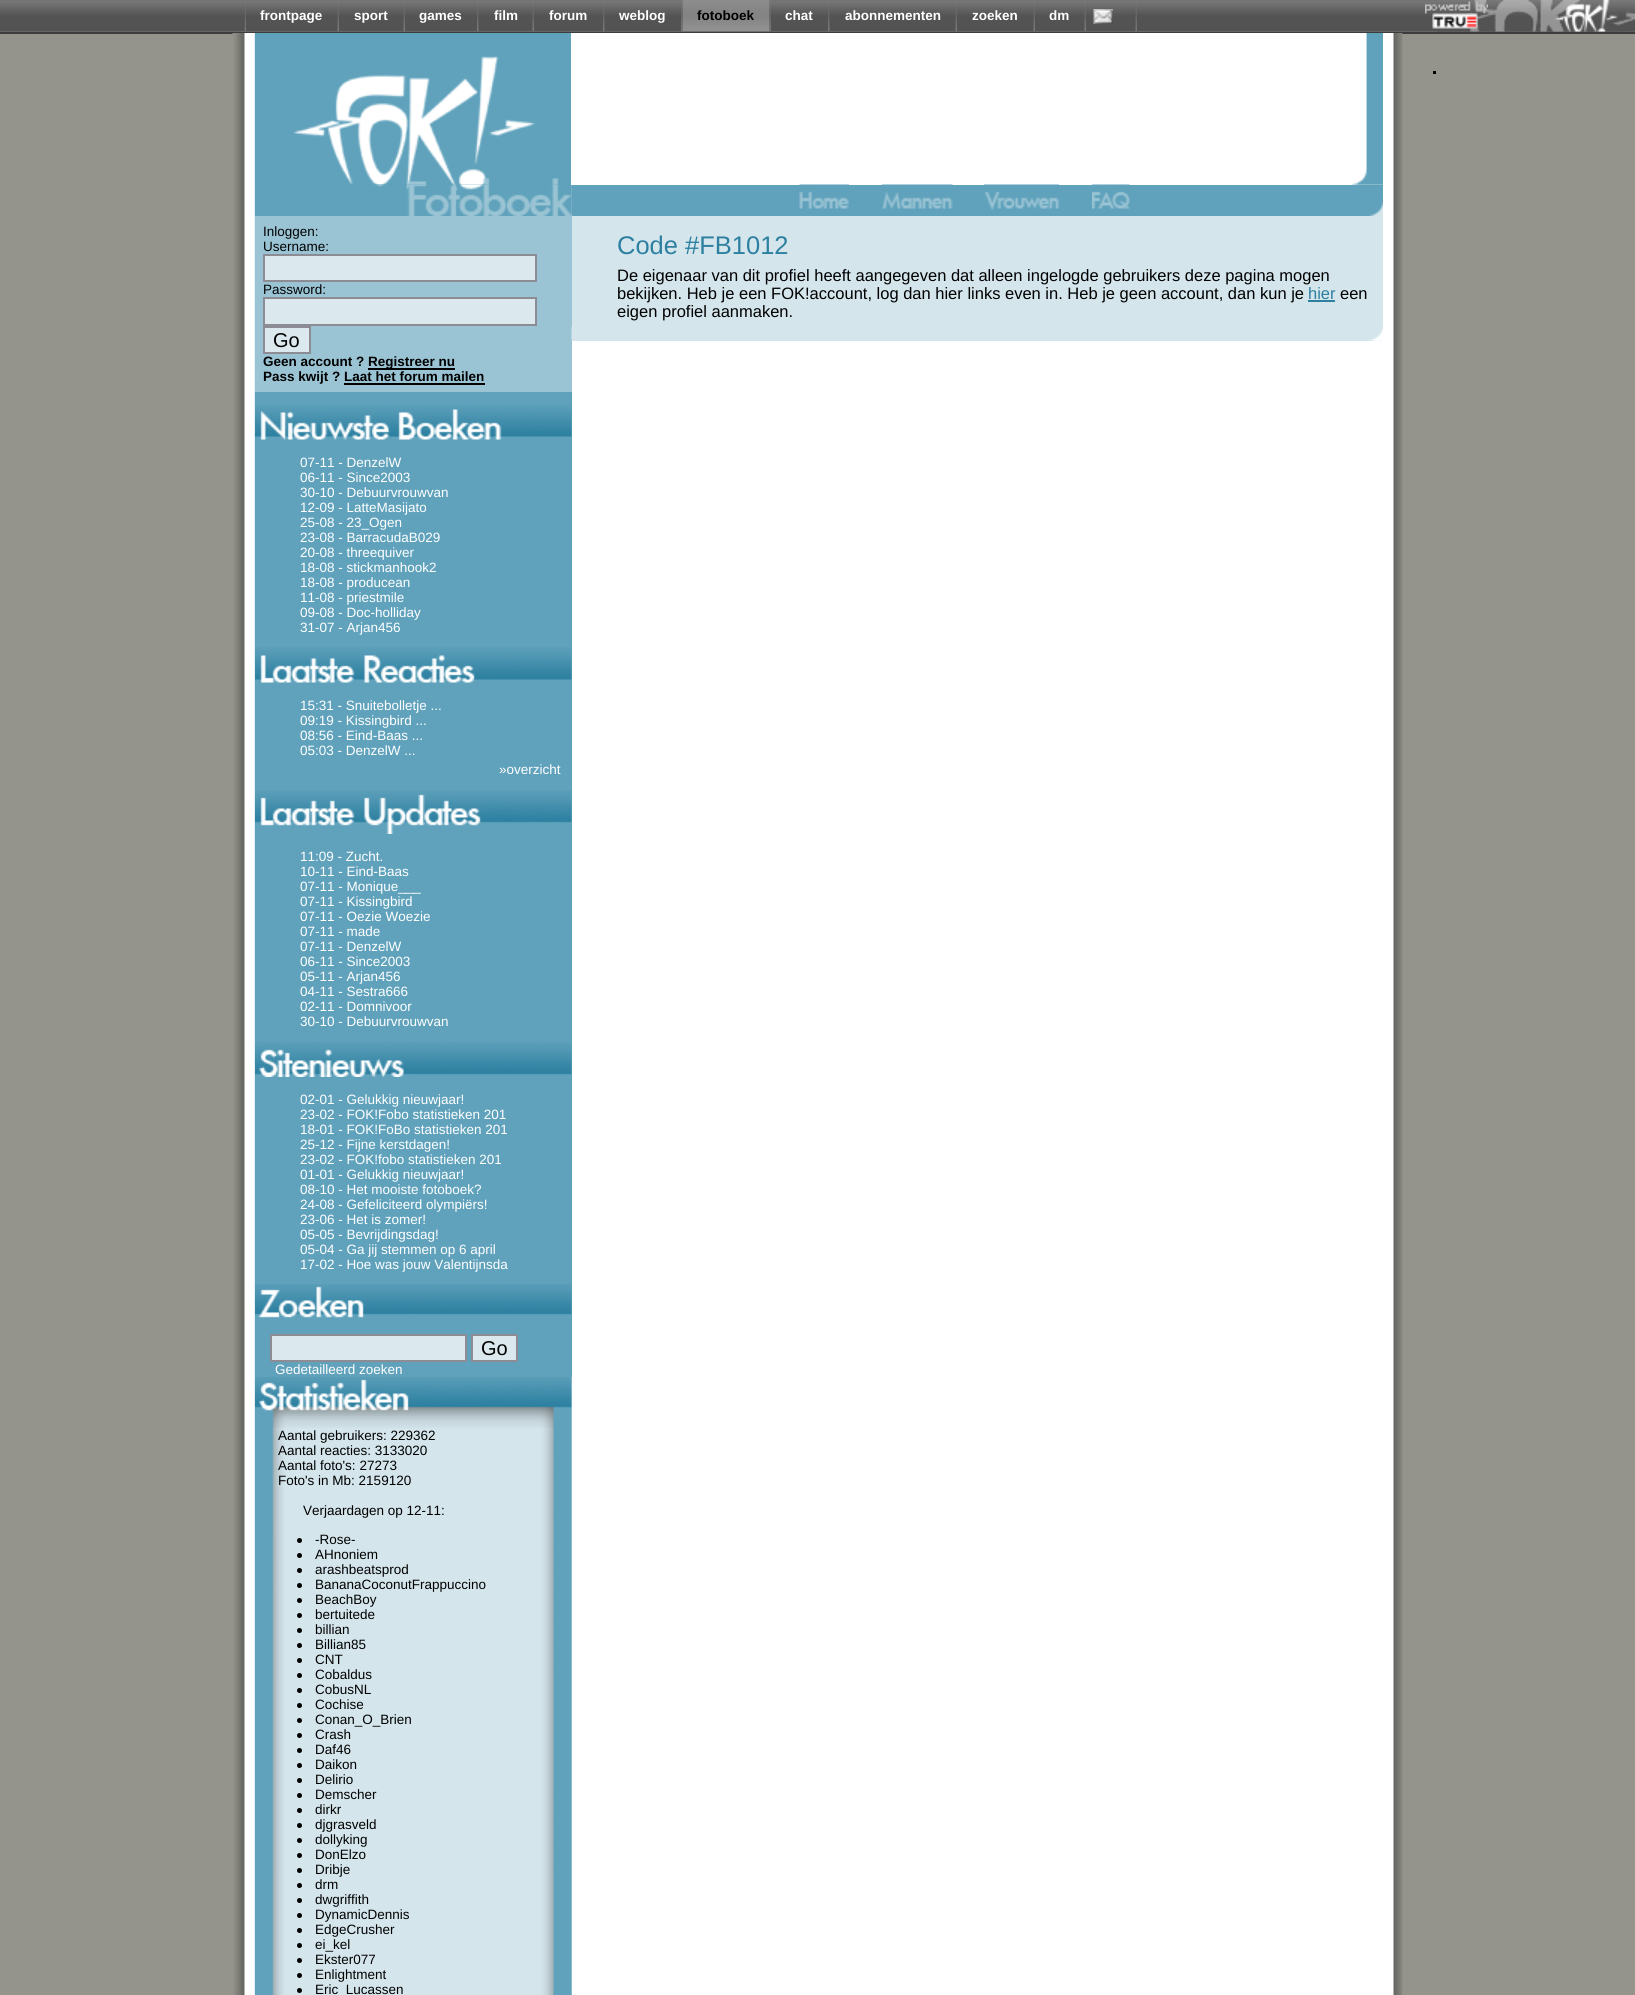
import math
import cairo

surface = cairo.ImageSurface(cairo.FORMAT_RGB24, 1635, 1995)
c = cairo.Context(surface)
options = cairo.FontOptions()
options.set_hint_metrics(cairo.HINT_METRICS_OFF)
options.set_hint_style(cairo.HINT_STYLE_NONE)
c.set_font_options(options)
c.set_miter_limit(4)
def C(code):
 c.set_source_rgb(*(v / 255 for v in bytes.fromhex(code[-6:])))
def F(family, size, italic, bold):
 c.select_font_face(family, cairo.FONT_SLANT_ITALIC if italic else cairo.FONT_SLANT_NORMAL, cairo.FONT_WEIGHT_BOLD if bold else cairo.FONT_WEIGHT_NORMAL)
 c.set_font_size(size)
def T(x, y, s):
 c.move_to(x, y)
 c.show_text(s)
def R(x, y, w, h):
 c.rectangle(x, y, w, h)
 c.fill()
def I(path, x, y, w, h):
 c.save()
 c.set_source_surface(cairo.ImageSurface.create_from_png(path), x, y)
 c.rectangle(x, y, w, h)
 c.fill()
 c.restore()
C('94948d')
c.paint()
I('1.png',0,0,1635,32)
C('3c3c3c')
R(0,32,1635,2)
I('2.png',1437,0,198,32)
I('3.png',244,0,2,32)
F('Liberation Sans',13.5,0,1)
C('ffffff')
T(260,20,'frontpage')
I('4.png',337,0,2,32)
T(354,20,'sport')
I('4.png',403,0,2,32)
T(419,20,'games')
I('5.png',477,0,2,32)
T(494,20,'film')
I('4.png',532,0,2,32)
T(549,20,'forum')
I('5.png',603,0,2,32)
T(619,20,'weblog')
I('7.png',682,0,88,32)
I('6.png',681,0,2,32)
C('000000')
T(697,20,'fotoboek')
I('8.png',769,0,2,32)
C('ffffff')
T(785,20,'chat')
I('5.png',828,0,2,32)
T(845,20,'abonnementen')
I('4.png',955,0,2,32)
T(972,20,'zoeken')
I('4.png',1033,0,2,32)
T(1049,20,'dm')
I('4.png',1084,0,2,32)
I('9.png',1093,9,20,15)
I('4.png',1135,0,2,32)
I('10.png',1425,1,63,28)
I('11.png',232,33,1171,1962)
C('000000')
R(1433,71,3,3)
I('13.png',571,184,812,32)
I('18.png',255,33,316,152)
I('19.png',255,184,317,32)
C('ffffff')
R(571,33,781,152)
I('12.png',1352,33,31,152)
I('14.png',799,184,50,25)
I('15.png',882,184,71,25)
I('16.png',984,184,75,26)
I('17.png',1092,184,38,25)
C('9ac4d4')
R(255,216,317,176)
F('Liberation Sans',13.5,0,0)
C('000000')
T(263,236,'Inloggen:')
T(263,251,'Username:')
C('dbe9ef')
c.rectangle(264,255,272,26)
c.fill_preserve()
C('8d8c94')
c.stroke()
C('000000')
T(263,294,'Password:')
C('dbe9ef')
c.rectangle(264,298,272,27)
c.fill_preserve()
C('8d8c94')
c.stroke()
C('dbe9ef')
c.rectangle(264,327,46,26)
c.fill_preserve()
C('8d8c94')
c.stroke()
F('Liberation Sans',20,0,0)
C('000000')
T(273,347,'Go')
F('Liberation Sans',13.5,0,1)
T(263,366,'Geen account ?')
R(368,368,87,2)
T(368,366,'Registreer nu')
T(263,381,'Pass kwijt ? Laat het forum mailen')
R(344,383,141,2)
C('60a2bc')
R(255,392,317,985)
I('20.png',255,404,317,36)
F('Liberation Sans',13.5,0,0)
C('ffffff')
T(300,467,'07-11 - DenzelW')
T(300,482,'06-11 - Since2003')
T(300,497,'30-10 - Debuurvrouwvan')
T(300,512,'12-09 - LatteMasijato')
T(300,527,'25-08 - 23_Ogen')
T(300,542,'23-08 - BarracudaB029')
T(300,557,'20-08 - threequiver')
T(300,572,'18-08 - stickmanhook2')
T(300,587,'18-08 - producean')
T(300,602,'11-08 - priestmile')
T(300,617,'09-08 - Doc-holliday')
T(300,632,'31-07 - Arjan456')
I('21.png',255,647,317,36)
T(300,710,'15:31 - Snuitebolletje ...')
T(300,725,'09:19 - Kissingbird ...')
T(300,740,'08:56 - Eind-Baas ...')
T(300,755,'05:03 - DenzelW ...')
T(499,774,'»overzicht')
I('22.png',255,790,317,44)
T(300,861,'11:09 - Zucht.')
T(300,876,'10-11 - Eind-Baas')
T(300,891,'07-11 - Monique___')
T(300,906,'07-11 - Kissingbird')
T(300,921,'07-11 - Oezie Woezie')
T(300,936,'07-11 - made')
T(300,951,'07-11 - DenzelW')
T(300,966,'06-11 - Since2003')
T(300,981,'05-11 - Arjan456')
T(300,996,'04-11 - Sestra666')
T(300,1011,'02-11 - Domnivoor')
T(300,1026,'30-10 - Debuurvrouwvan')
I('23.png',255,1042,317,35)
T(300,1104,'02-01 - Gelukkig nieuwjaar!')
T(300,1119,'23-02 - FOK!Fobo statistieken 201')
T(300,1134,'18-01 - FOK!FoBo statistieken 201')
T(300,1149,'25-12 - Fijne kerstdagen!')
T(300,1164,'23-02 - FOK!fobo statistieken 201')
T(300,1179,'01-01 - Gelukkig nieuwjaar!')
T(300,1194,'08-10 - Het mooiste fotoboek?')
T(300,1209,'24-08 - Gefeliciteerd olympiërs!')
T(300,1224,'23-06 - Het is zomer!')
T(300,1239,'05-05 - Bevrijdingsdag!')
T(300,1254,'05-04 - Ga jij stemmen op 6 april')
T(300,1269,'17-02 - Hoe was jouw Valentijnsda')
I('24.png',255,1284,317,34)
C('dbe9ef')
c.rectangle(271,1335,195,26)
c.fill_preserve()
C('8d8c94')
c.stroke()
C('dbe9ef')
c.rectangle(472,1335,45,26)
c.fill_preserve()
C('8d8c94')
c.stroke()
F('Liberation Sans',20,0,0)
C('000000')
T(481,1355,'Go')
F('Liberation Sans',13.5,0,0)
C('ffffff')
T(275,1374,'Gedetailleerd zoeken')
I('25.png',255,1377,317,51)
I('26.png',255,1428,317,60)
C('000000')
T(278,1440,'Aantal gebruikers: 229362')
T(278,1455,'Aantal reacties: 3133020')
T(278,1470,'Aantal foto\'s: 27273')
T(278,1485,'Foto\'s in Mb: 2159120')
I('27.png',255,1488,317,507)
T(303,1515,'Verjaardagen op 12-11:')
c.new_path()
c.arc(299.5,1540.5,2.5,0,2 * math.pi)
c.fill()
T(315,1544,'-Rose-')
c.new_path()
c.arc(299.5,1555.5,2.5,0,2 * math.pi)
c.fill()
T(315,1559,'AHnoniem')
c.new_path()
c.arc(299.5,1570.5,2.5,0,2 * math.pi)
c.fill()
T(315,1574,'arashbeatsprod')
c.new_path()
c.arc(299.5,1585.5,2.5,0,2 * math.pi)
c.fill()
T(315,1589,'BananaCoconutFrappuccino')
c.new_path()
c.arc(299.5,1600.5,2.5,0,2 * math.pi)
c.fill()
T(315,1604,'BeachBoy')
c.new_path()
c.arc(299.5,1615.5,2.5,0,2 * math.pi)
c.fill()
T(315,1619,'bertuitede')
c.new_path()
c.arc(299.5,1630.5,2.5,0,2 * math.pi)
c.fill()
T(315,1634,'billian')
c.new_path()
c.arc(299.5,1645.5,2.5,0,2 * math.pi)
c.fill()
T(315,1649,'Billian85')
c.new_path()
c.arc(299.5,1660.5,2.5,0,2 * math.pi)
c.fill()
T(315,1664,'CNT')
c.new_path()
c.arc(299.5,1675.5,2.5,0,2 * math.pi)
c.fill()
T(315,1679,'Cobaldus')
c.new_path()
c.arc(299.5,1690.5,2.5,0,2 * math.pi)
c.fill()
T(315,1694,'CobusNL')
c.new_path()
c.arc(299.5,1705.5,2.5,0,2 * math.pi)
c.fill()
T(315,1709,'Cochise')
c.new_path()
c.arc(299.5,1720.5,2.5,0,2 * math.pi)
c.fill()
T(315,1724,'Conan_O_Brien')
c.new_path()
c.arc(299.5,1735.5,2.5,0,2 * math.pi)
c.fill()
T(315,1739,'Crash')
c.new_path()
c.arc(299.5,1750.5,2.5,0,2 * math.pi)
c.fill()
T(315,1754,'Daf46')
c.new_path()
c.arc(299.5,1765.5,2.5,0,2 * math.pi)
c.fill()
T(315,1769,'Daikon')
c.new_path()
c.arc(299.5,1780.5,2.5,0,2 * math.pi)
c.fill()
T(315,1784,'Delirio')
c.new_path()
c.arc(299.5,1795.5,2.5,0,2 * math.pi)
c.fill()
T(315,1799,'Demscher')
c.new_path()
c.arc(299.5,1810.5,2.5,0,2 * math.pi)
c.fill()
T(315,1814,'dirkr')
c.new_path()
c.arc(299.5,1825.5,2.5,0,2 * math.pi)
c.fill()
T(315,1829,'djgrasveld')
c.new_path()
c.arc(299.5,1840.5,2.5,0,2 * math.pi)
c.fill()
T(315,1844,'dollyking')
c.new_path()
c.arc(299.5,1855.5,2.5,0,2 * math.pi)
c.fill()
T(315,1859,'DonElzo')
c.new_path()
c.arc(299.5,1870.5,2.5,0,2 * math.pi)
c.fill()
T(315,1874,'Dribje')
c.new_path()
c.arc(299.5,1885.5,2.5,0,2 * math.pi)
c.fill()
T(315,1889,'drm')
c.new_path()
c.arc(299.5,1900.5,2.5,0,2 * math.pi)
c.fill()
T(315,1904,'dwgriffith')
c.new_path()
c.arc(299.5,1915.5,2.5,0,2 * math.pi)
c.fill()
T(315,1919,'DynamicDennis')
c.new_path()
c.arc(299.5,1930.5,2.5,0,2 * math.pi)
c.fill()
T(315,1934,'EdgeCrusher')
c.new_path()
c.arc(299.5,1945.5,2.5,0,2 * math.pi)
c.fill()
T(315,1949,'ei_kel')
c.new_path()
c.arc(299.5,1960.5,2.5,0,2 * math.pi)
c.fill()
T(315,1964,'Ekster077')
c.new_path()
c.arc(299.5,1975.5,2.5,0,2 * math.pi)
c.fill()
T(315,1979,'Enlightment')
c.new_path()
c.arc(299.5,1990.5,2.5,0,2 * math.pi)
c.fill()
T(315,1994,'Eric_Lucassen')
C('d4e5ec')
R(572,216,811,125)
F('Liberation Sans',25.5,0,0)
C('2e80a1')
T(617,254,'Code #FB1012')
F('Liberation Sans',16.5,0,0)
C('000000')
T(617,281,'De eigenaar van dit profiel heeft aangegeven dat alleen ingelogde gebruikers deze pagina mogen')
T(617,299,'bekijken. Heb je een FOK!account, log dan hier links even in. Heb je geen account, dan kun je')
C('2e80a1')
T(1308,299,'hier')
R(1308,300,27,2)
C('000000')
T(1340,299,'een')
T(617,317,'eigen profiel aanmaken.')
I('28.png',572,340,811,1)
I('29.png',571,327,812,14)
surface.write_to_png('o.png')
